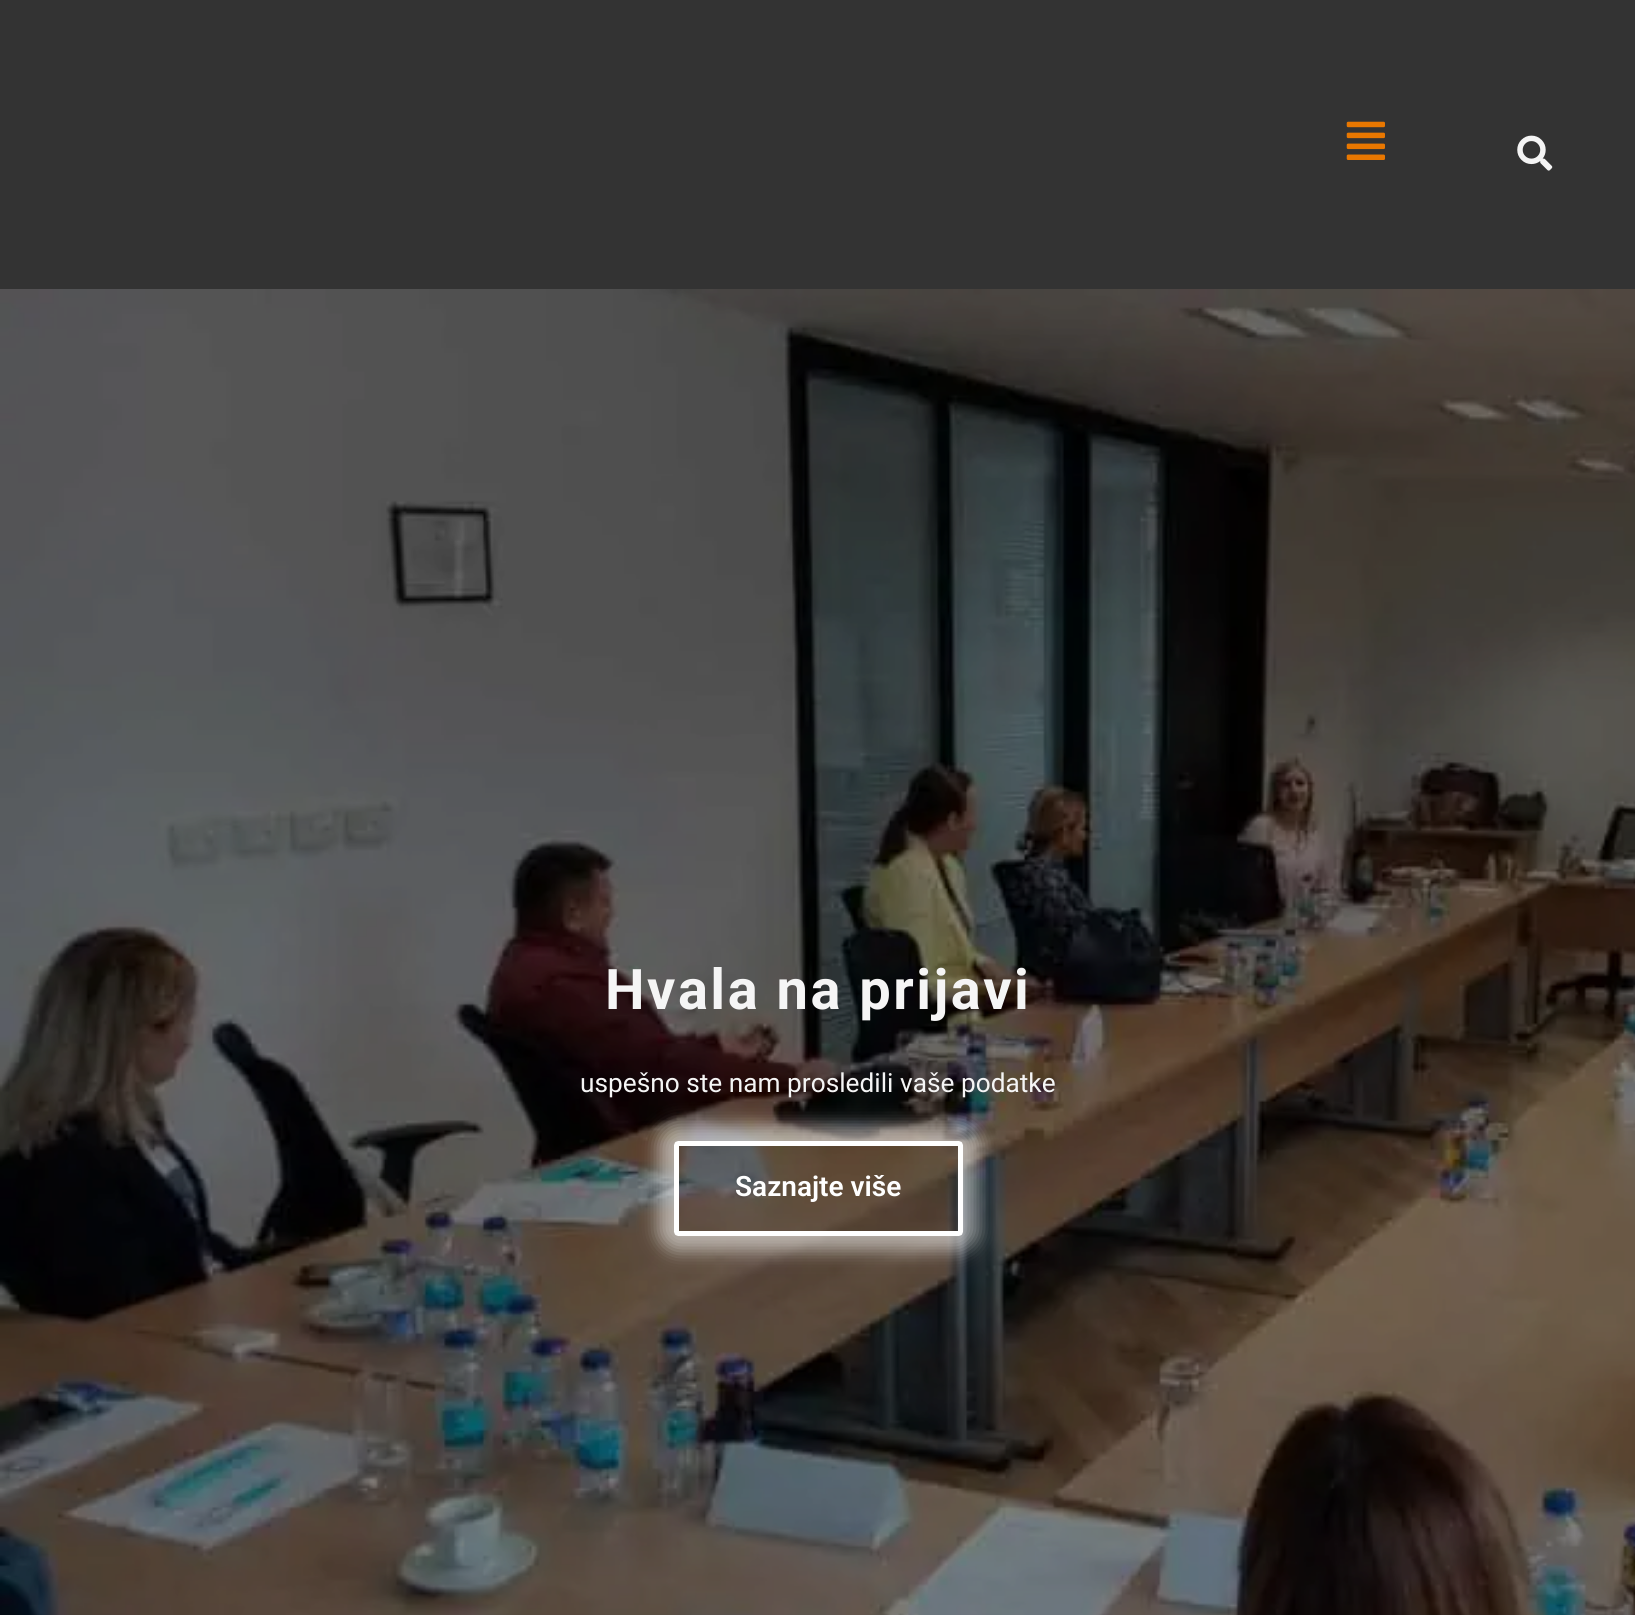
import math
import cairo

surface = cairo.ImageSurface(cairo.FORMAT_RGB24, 1635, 1615)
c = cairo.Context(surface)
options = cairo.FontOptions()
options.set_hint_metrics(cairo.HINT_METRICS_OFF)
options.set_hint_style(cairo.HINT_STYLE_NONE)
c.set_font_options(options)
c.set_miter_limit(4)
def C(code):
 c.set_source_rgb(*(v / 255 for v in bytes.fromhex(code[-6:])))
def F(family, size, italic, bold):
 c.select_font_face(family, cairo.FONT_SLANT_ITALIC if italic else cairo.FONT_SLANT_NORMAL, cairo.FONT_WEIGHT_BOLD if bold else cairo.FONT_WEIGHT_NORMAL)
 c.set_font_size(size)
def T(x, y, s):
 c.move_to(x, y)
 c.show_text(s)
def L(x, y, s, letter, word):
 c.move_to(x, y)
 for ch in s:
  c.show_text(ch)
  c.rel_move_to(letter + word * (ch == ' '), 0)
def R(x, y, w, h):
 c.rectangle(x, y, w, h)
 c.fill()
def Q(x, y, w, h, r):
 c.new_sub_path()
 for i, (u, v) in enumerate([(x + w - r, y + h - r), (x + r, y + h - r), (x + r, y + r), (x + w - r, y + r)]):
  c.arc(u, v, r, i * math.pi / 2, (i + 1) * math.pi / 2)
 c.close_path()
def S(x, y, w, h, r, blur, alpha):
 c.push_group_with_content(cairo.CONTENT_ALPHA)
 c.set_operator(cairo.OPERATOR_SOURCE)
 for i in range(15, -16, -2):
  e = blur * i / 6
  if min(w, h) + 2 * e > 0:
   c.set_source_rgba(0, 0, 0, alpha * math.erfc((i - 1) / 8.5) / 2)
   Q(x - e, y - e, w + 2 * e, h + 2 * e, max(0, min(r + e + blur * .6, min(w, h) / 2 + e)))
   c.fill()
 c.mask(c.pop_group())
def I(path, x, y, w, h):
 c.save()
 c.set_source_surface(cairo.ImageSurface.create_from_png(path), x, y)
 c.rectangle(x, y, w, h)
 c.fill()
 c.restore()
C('ffffff')
c.paint()
C('333333')
R(0,0,1635,289)
I('1.png',1346,121,39,39)
I('2.png',1517,135,36,36)
I('3.png',0,289,1635,1326)
F('Roboto',56,0,1)
C('f5f5f5')
L(605,1009,'Hvala na prijavi',2.5,0)
F('Roboto',26.25,0,0)
T(580,1092,'uspešno ste nam prosledili vaše podatke')
c.save()
c.set_fill_rule(cairo.FILL_RULE_EVEN_ODD)
c.new_path()
c.move_to(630,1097)
c.line_to(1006,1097)
c.line_to(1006,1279)
c.line_to(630,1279)
c.close_path()
c.move_to(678,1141)
c.line_to(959,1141)
c.curve_to(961,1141,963,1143,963,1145)
c.line_to(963,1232)
c.curve_to(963,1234,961,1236,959,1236)
c.line_to(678,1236)
c.curve_to(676,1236,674,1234,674,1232)
c.line_to(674,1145)
c.curve_to(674,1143,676,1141,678,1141)
c.close_path()
c.clip()
C('ffffff')
S(658,1125,320,126,19,9,.55)
c.restore()
Q(676.5,1143.5,284,90,1.5)
C('ffffff')
c.set_line_width(5)
c.stroke()
F('Roboto SemiBold',28,0,0)
T(735,1196,'Saznajte više')
surface.write_to_png('o.png')
